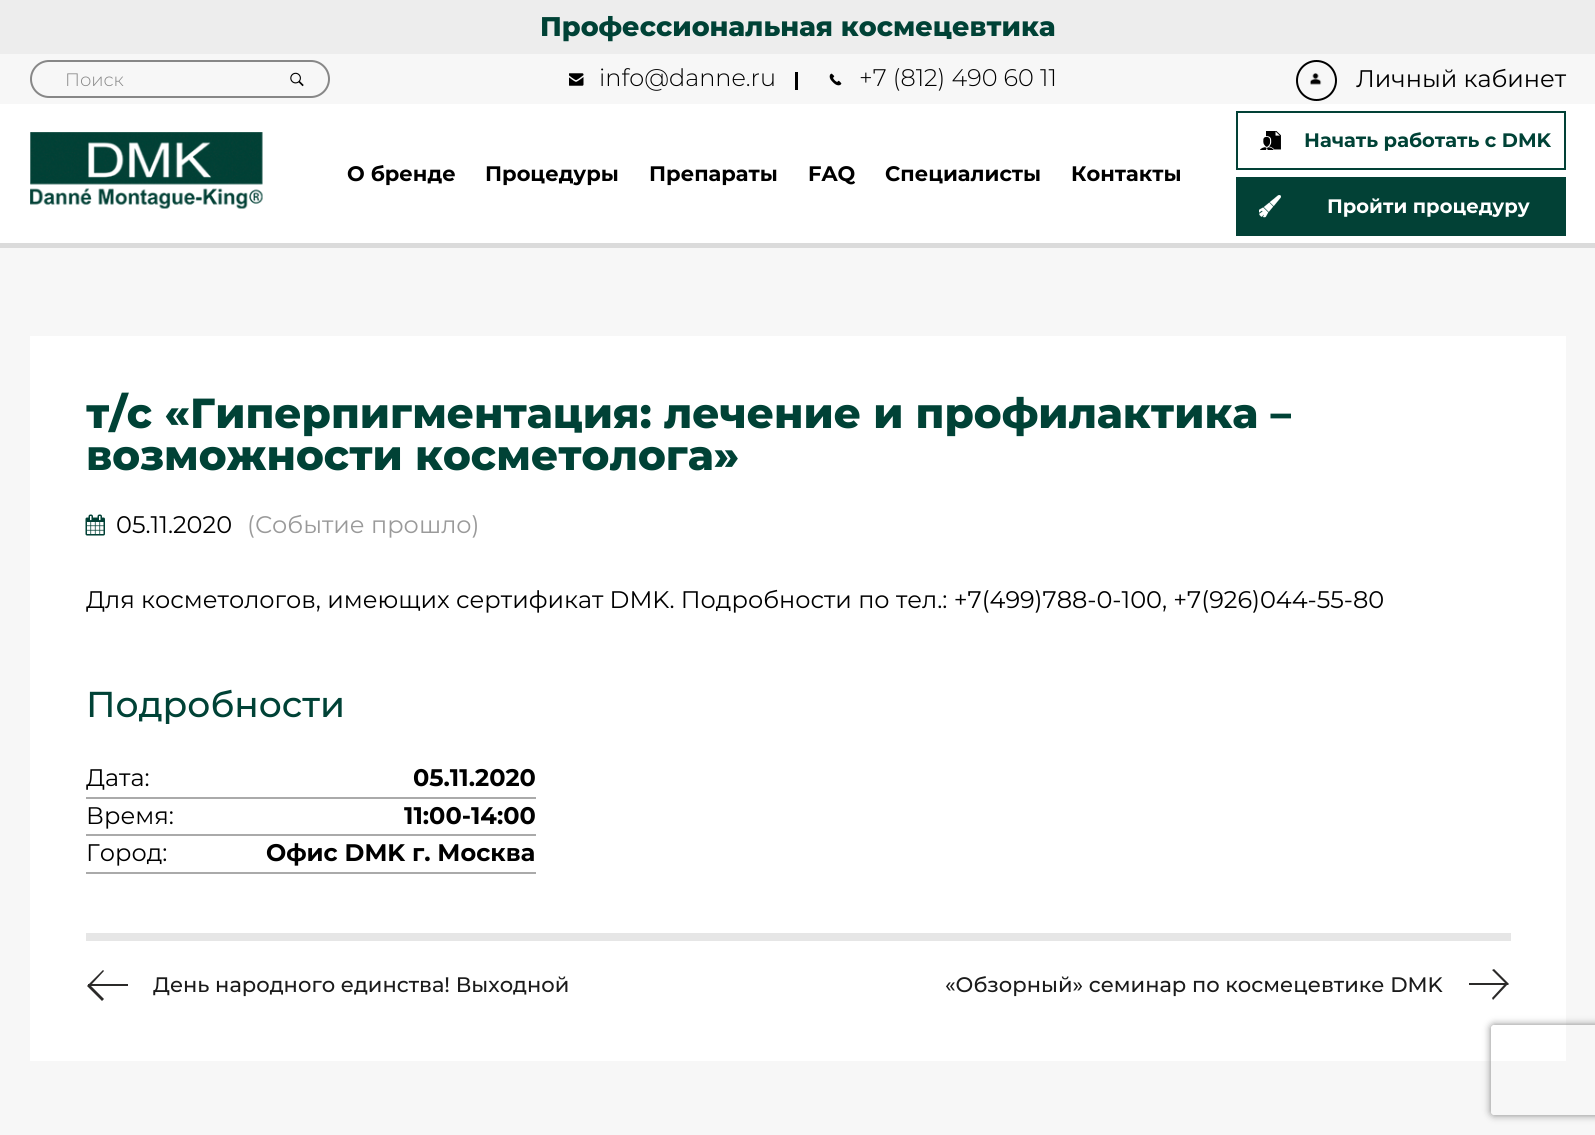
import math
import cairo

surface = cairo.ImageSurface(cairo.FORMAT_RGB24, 1595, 1135)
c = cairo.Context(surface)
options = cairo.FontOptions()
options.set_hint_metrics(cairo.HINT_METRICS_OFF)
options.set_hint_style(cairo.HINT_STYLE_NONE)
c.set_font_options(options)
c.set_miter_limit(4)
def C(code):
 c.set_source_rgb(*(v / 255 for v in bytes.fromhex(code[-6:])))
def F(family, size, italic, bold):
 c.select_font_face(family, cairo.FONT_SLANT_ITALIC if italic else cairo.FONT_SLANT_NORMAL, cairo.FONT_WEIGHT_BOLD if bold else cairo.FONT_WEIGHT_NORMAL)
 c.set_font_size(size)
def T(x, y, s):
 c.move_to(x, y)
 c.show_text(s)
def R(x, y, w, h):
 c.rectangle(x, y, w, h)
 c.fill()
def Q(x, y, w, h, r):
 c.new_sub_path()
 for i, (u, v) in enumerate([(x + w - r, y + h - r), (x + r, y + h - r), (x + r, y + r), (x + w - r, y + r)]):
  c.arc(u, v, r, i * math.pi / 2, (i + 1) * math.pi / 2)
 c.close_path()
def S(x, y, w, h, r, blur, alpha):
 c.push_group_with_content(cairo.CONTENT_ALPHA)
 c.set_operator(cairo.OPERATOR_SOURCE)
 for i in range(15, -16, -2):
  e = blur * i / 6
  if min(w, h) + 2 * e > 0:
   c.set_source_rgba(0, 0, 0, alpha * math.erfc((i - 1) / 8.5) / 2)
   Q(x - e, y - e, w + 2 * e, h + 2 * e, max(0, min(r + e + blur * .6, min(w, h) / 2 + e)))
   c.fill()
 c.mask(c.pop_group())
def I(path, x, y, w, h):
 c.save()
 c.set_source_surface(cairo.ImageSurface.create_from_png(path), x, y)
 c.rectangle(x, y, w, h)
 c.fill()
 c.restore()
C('ffffff')
c.paint()
C('ededed')
R(0,0,1595,54)
F('Montserrat ExtraBold',27,0,0)
C('004236')
T(540,36,'Профессиональная космецевтика')
C('f7f7f7')
R(0,54,1595,50)
Q(31,61,298,36,18)
C('878787')
c.stroke()
F('Montserrat Light',18,0,0)
T(65,86,'Поиск')
I('1.png',290,72,14,15)
I('2.png',569,73,15,13)
F('Montserrat Light',24,0,0)
C('000000')
T(599,86,'info@danne.ru')
R(795,72,3,18)
I('3.png',829,73,13,13)
T(859,86,'+7 (812) 490 60 11')
I('4.png',1310,73,12,12)
c.arc(1316.5,80.5,19.5,0,2 * math.pi)
c.stroke()
F('Montserrat',24,0,0)
T(1356,87,'Личный кабинет')
C('dbdbdb')
R(0,243,1595,5)
I('5.png',30,132,233,77)
F('Montserrat',21,0,1)
C('000000')
T(347,181,'О бренде')
T(485,181,'Процедуры')
T(649,181,'Препараты')
T(808,181,'FAQ')
T(885,181,'Специалисты')
T(1071,181,'Контакты')
c.rectangle(1237,112,328,57)
C('024136')
c.stroke()
I('6.png',1260,131,21,19)
F('Montserrat',19.5,0,1)
C('004236')
T(1304,147,'Начать работать с DMK')
C('024136')
R(1236,177,330,59)
I('7.png',1259,195,22,23)
C('ffffff')
T(1327,213,'Пройти процедуру')
C('f7f7f7')
R(0,248,1595,887)
C('ffffff')
R(30,336,1536,725)
F('Montserrat ExtraBold',42,0,0)
C('004236')
T(86,428,'т/с «Гиперпигментация: лечение и профилактика –')
T(86,470,'возможности косметолога»')
I('8.png',85,514,20,22)
F('Montserrat',24,0,0)
C('000000')
T(116,533,'05.11.2020')
C('9a9a9a')
T(247,533,'(Событие прошло)')
C('000000')
T(86,608,'Для косметологов, имеющих сертификат DMK. Подробности по тел.: +7(499)788-0-100, +7(926)044-55-80')
F('Montserrat Medium',36,0,0)
C('004236')
T(86,717,'Подробности')
C('aaaaaa')
R(86,797,450,2)
F('Montserrat',24,0,0)
C('000000')
T(86,786,'Дата:')
F('Montserrat',24,0,1)
T(413,786,'05.11.2020')
C('aaaaaa')
R(86,834,450,2)
F('Montserrat',24,0,0)
C('000000')
T(86,824,'Время:')
F('Montserrat',24,0,1)
T(404,824,'11:00-14:00')
C('aaaaaa')
R(86,872,450,2)
F('Montserrat',24,0,0)
C('000000')
T(86,861,'Город:')
F('Montserrat',24,0,1)
T(266,861,'Офис DMK г. Москва')
C('e6e6e6')
R(86,933,1425,8)
c.save()
c.rectangle(86,969,42,32)
c.clip()
C('2b2a29')
c.new_path()
c.move_to(168,984)
c.line_to(168,986)
c.line_to(91,986)
c.line_to(104,999)
c.line_to(102,1001)
c.line_to(87,986)
c.line_to(88,985)
c.line_to(88,984)
c.line_to(89,984)
c.line_to(103,970)
c.line_to(104,971)
c.line_to(92,984)
c.close_path()
c.fill()
c.restore()
F('Montserrat Medium',21,0,0)
C('1b1b1b')
T(153,992,'День народного единства! Выходной')
T(945,992,'«Обзорный» семинар по космецевтике DMK')
c.save()
c.rectangle(1469,969,42,32)
c.clip()
C('2b2a29')
c.new_path()
c.move_to(1428,985)
c.line_to(1428,983)
c.line_to(1505,983)
c.line_to(1492,970)
c.line_to(1494,969)
c.line_to(1509,984)
c.line_to(1508,985)
c.line_to(1507,985)
c.line_to(1493,1000)
c.line_to(1492,998)
c.line_to(1504,985)
c.close_path()
c.fill()
c.restore()
c.save()
c.set_fill_rule(cairo.FILL_RULE_EVEN_ODD)
c.new_path()
c.move_to(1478,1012)
c.line_to(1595,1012)
c.line_to(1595,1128)
c.line_to(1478,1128)
c.close_path()
c.move_to(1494,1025)
c.line_to(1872,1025)
c.curve_to(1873.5,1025,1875,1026.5,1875,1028)
c.line_to(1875,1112)
c.curve_to(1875,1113.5,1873.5,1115,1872,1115)
c.line_to(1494,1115)
c.curve_to(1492.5,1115,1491,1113.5,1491,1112)
c.line_to(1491,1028)
c.curve_to(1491,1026.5,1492.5,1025,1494,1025)
c.close_path()
c.clip()
C('808080')
S(1491,1025,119,90,3,4,1)
c.restore()
surface.write_to_png('o.png')
